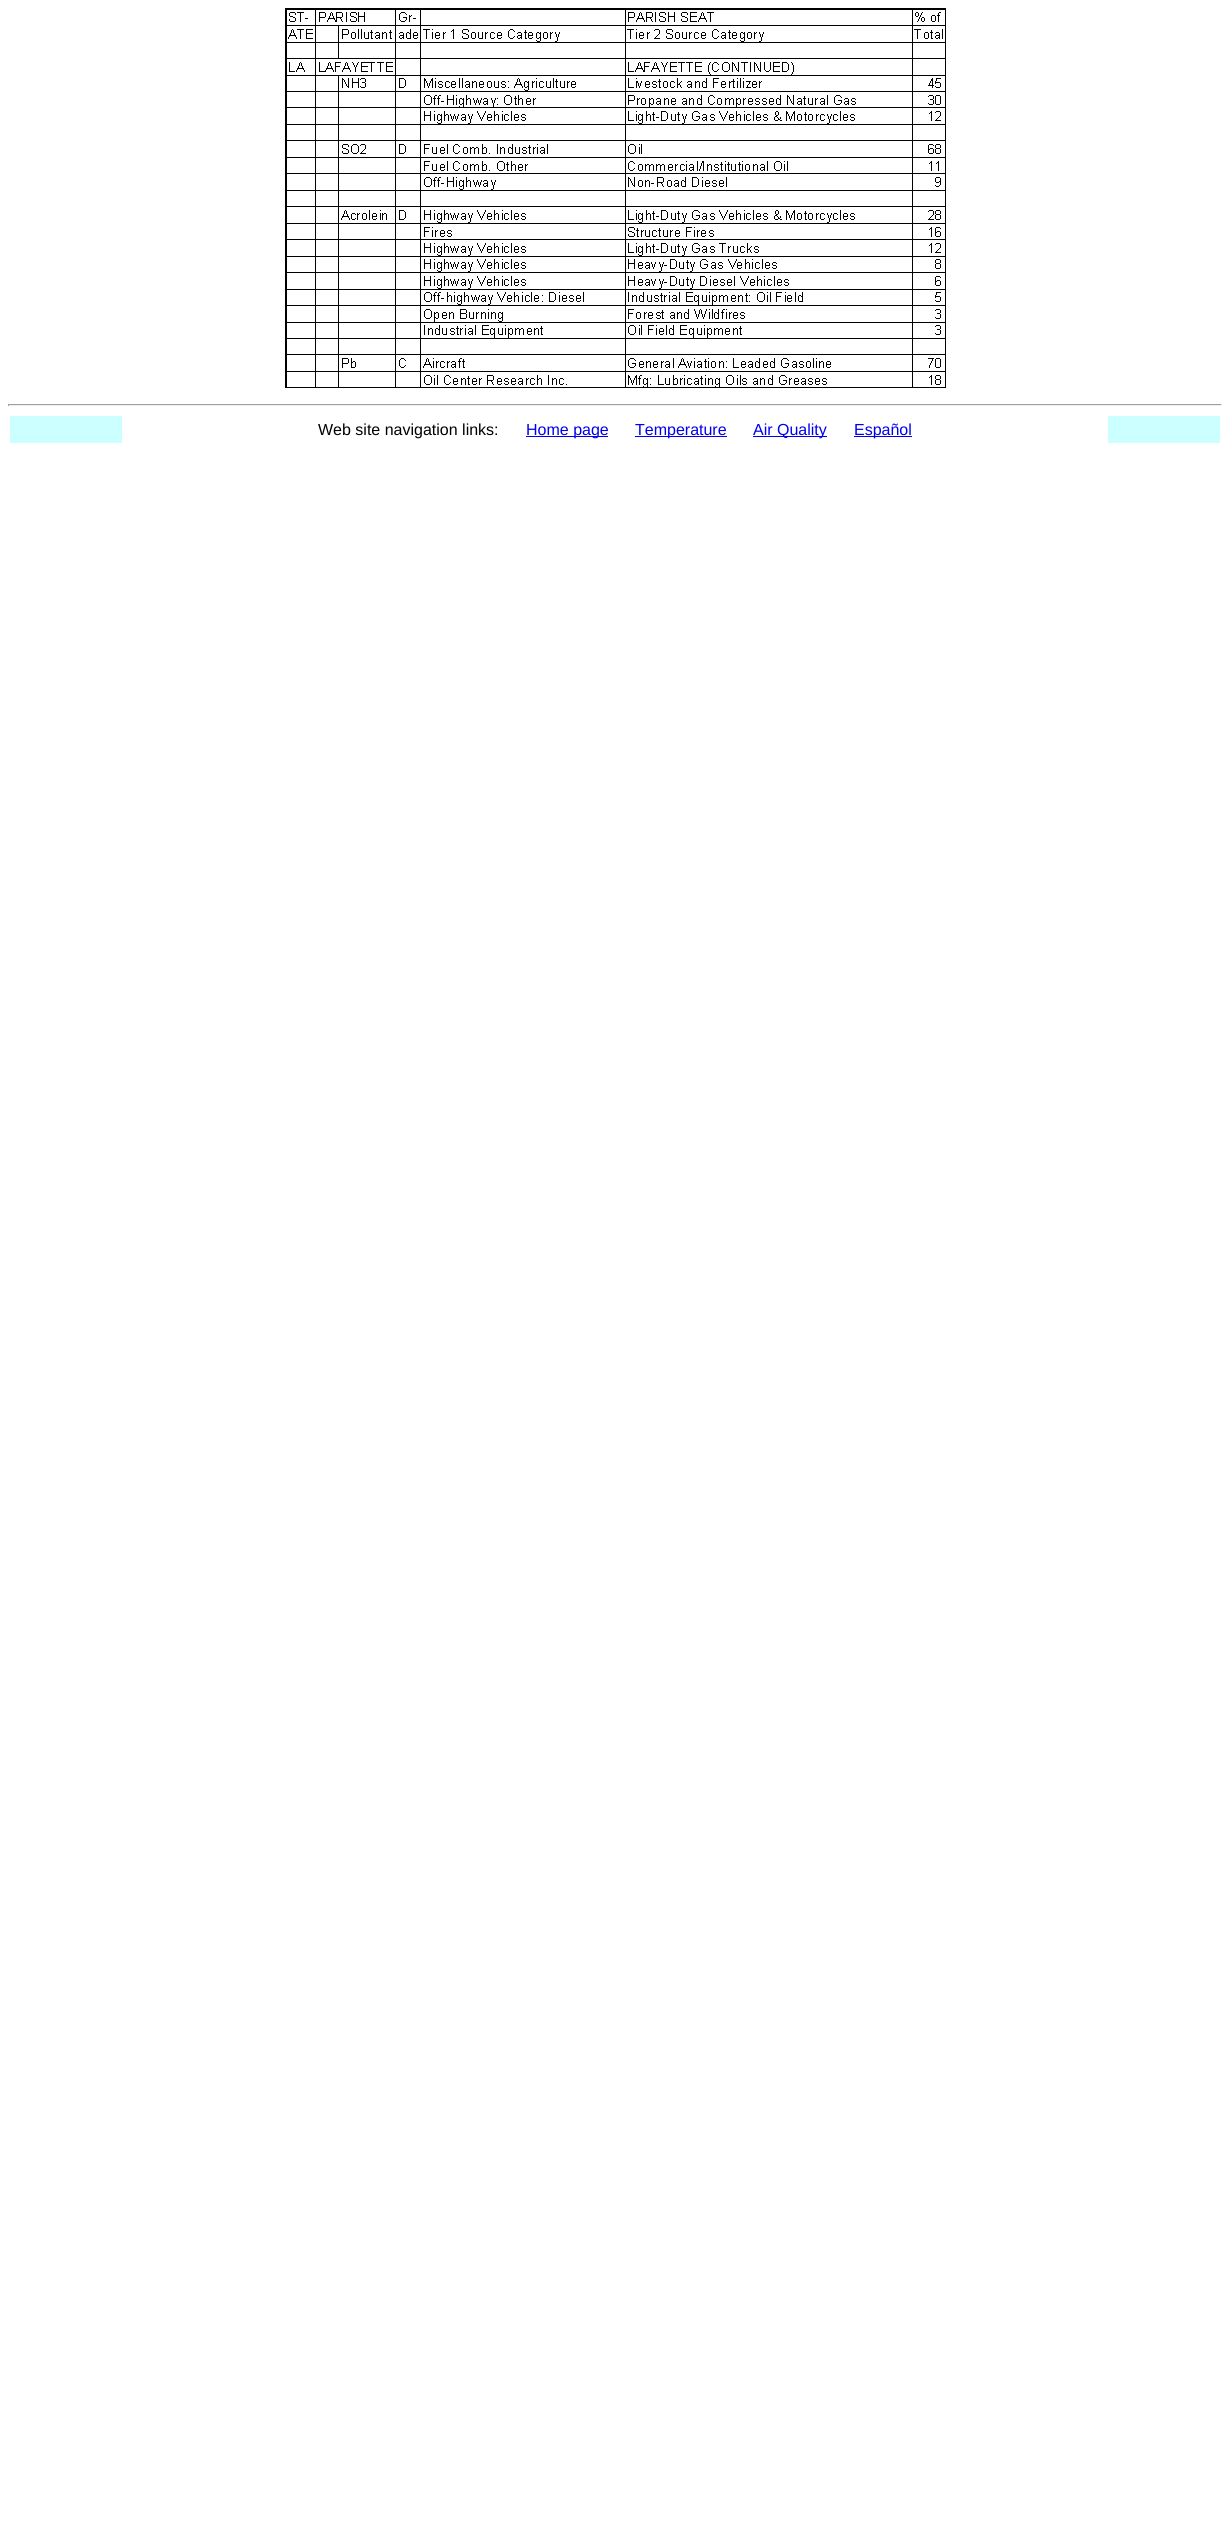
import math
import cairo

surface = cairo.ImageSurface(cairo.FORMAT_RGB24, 1230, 2521)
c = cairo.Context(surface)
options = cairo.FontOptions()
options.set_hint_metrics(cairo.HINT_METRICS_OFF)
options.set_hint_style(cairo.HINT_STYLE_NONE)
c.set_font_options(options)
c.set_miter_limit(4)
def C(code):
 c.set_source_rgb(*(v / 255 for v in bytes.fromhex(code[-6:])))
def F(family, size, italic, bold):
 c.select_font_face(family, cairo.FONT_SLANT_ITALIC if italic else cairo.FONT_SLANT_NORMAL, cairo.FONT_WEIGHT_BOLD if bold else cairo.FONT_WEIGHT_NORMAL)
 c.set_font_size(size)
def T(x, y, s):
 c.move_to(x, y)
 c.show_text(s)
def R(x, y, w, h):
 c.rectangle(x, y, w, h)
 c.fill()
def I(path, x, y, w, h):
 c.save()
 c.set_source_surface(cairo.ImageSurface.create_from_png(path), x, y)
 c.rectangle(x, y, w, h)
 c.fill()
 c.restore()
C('ffffff')
c.paint()
I('1.png',285,8,661,380)
C('9f9f9f')
R(8,404,1214,1)
C('eeeeee')
R(1221,404,1,2)
R(8,405,1214,1)
C('9f9f9f')
R(8,404,1,2)
C('ccffff')
R(10,416,112,27)
F('Liberation Sans',16,0,0)
C('000000')
T(318,435,'Web site navigation links:')
C('0000ee')
R(526,436,82,1)
T(526,435,'Home page')
R(635,436,92,1)
T(635,435,'Temperature')
R(753,436,74,1)
T(753,435,'Air Quality')
R(854,436,58,1)
T(854,435,'Español')
C('ccffff')
R(1108,416,112,27)
surface.write_to_png('o.png')
